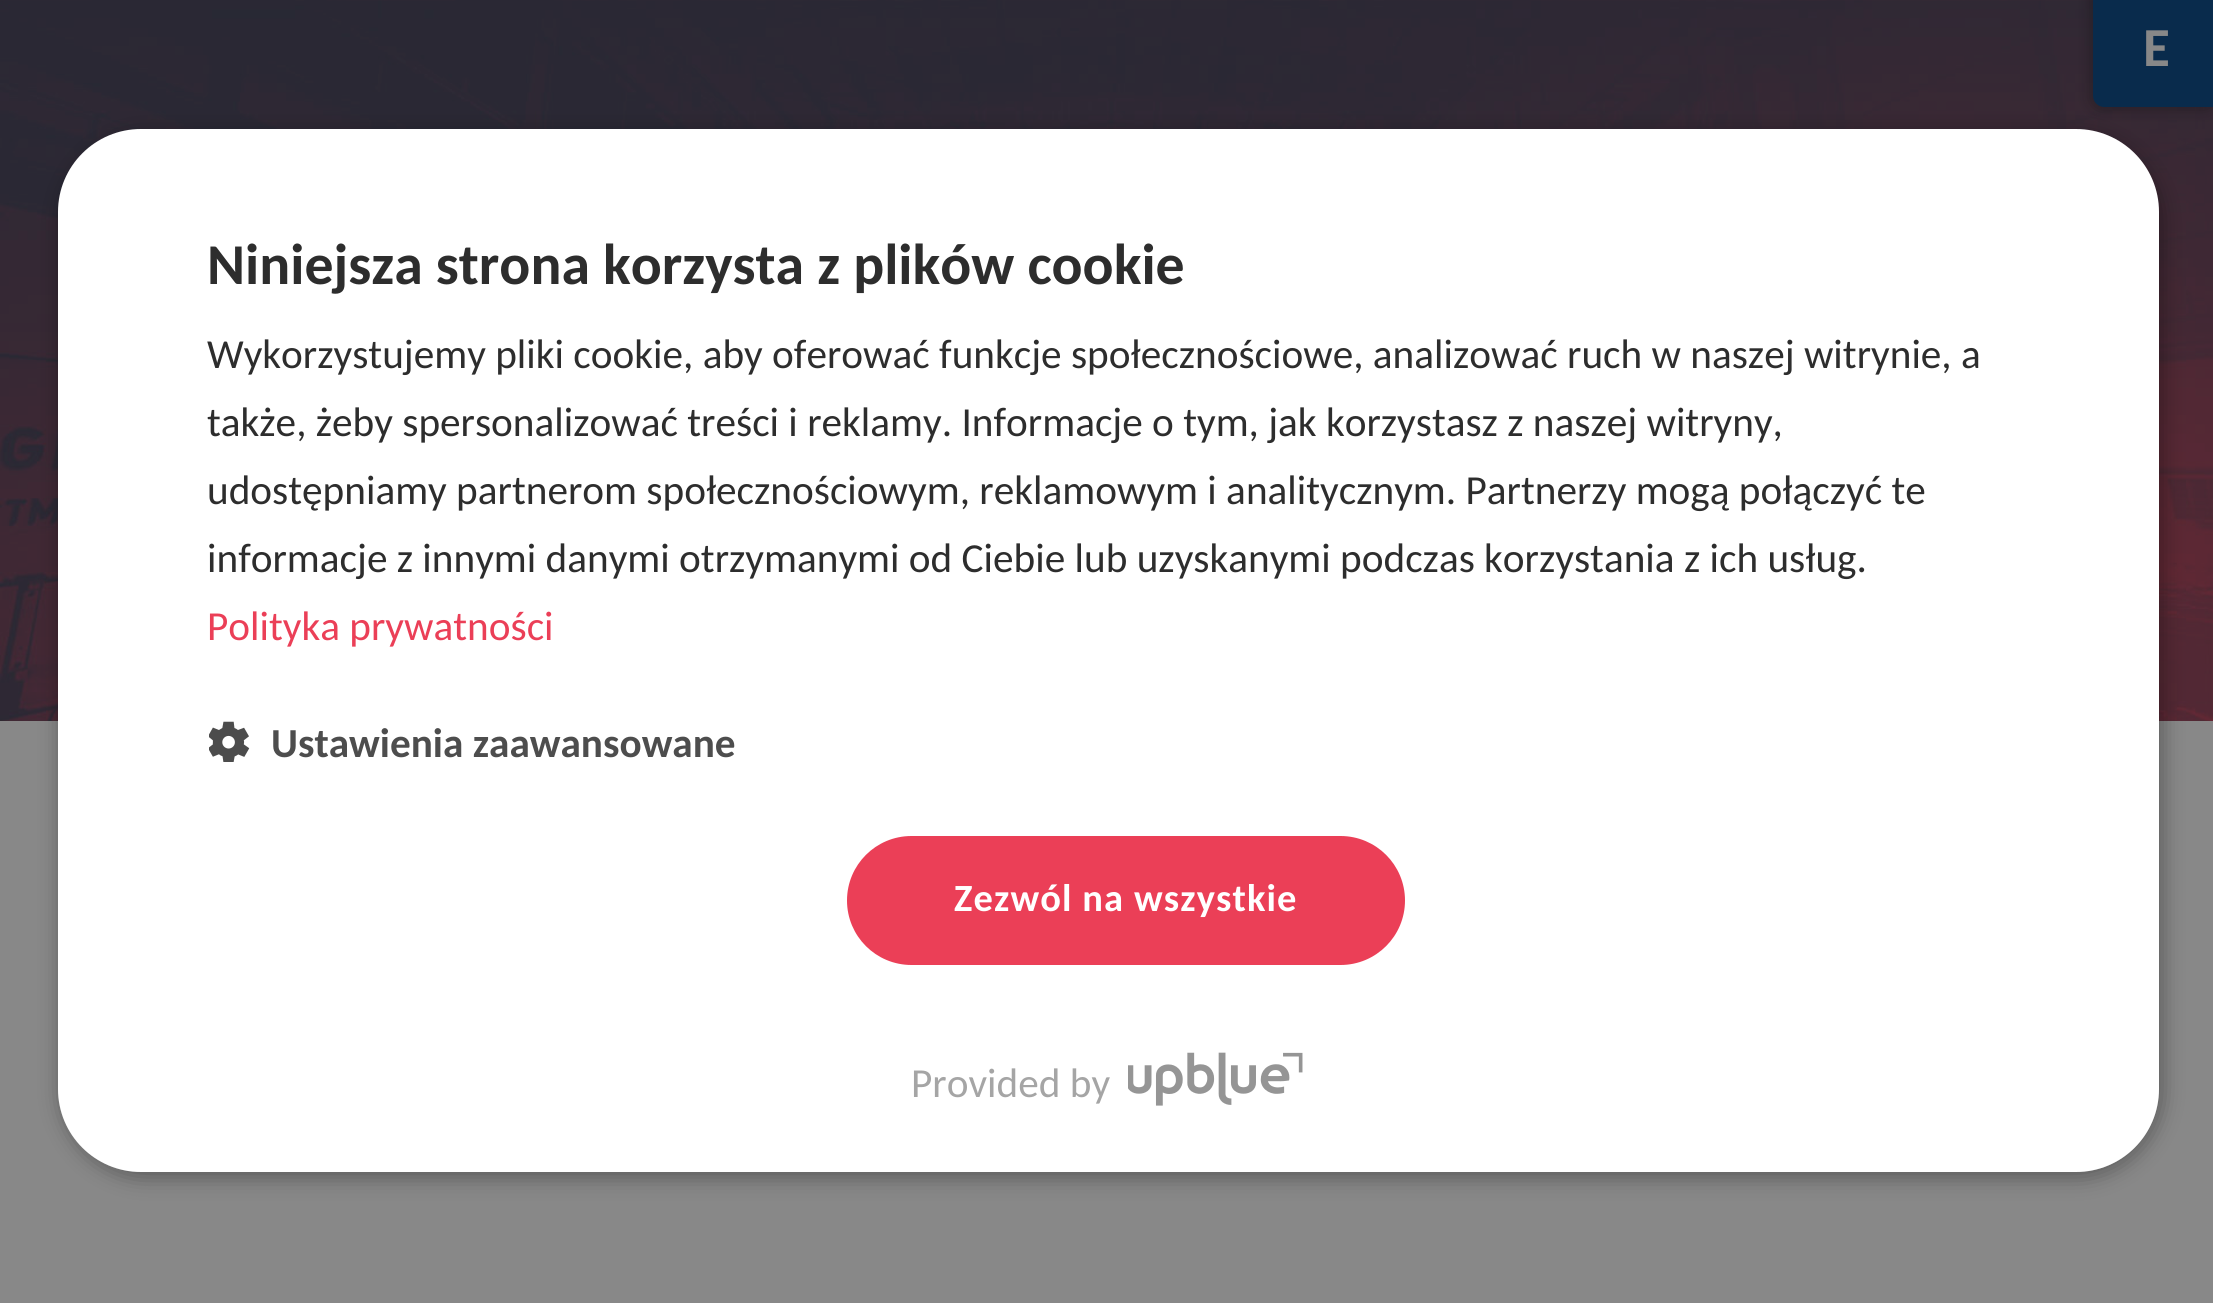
import math
import cairo

surface = cairo.ImageSurface(cairo.FORMAT_RGB24, 2213, 1303)
c = cairo.Context(surface)
options = cairo.FontOptions()
options.set_hint_metrics(cairo.HINT_METRICS_OFF)
options.set_hint_style(cairo.HINT_STYLE_NONE)
c.set_font_options(options)
c.set_miter_limit(4)
def C(code):
 c.set_source_rgb(*(v / 255 for v in bytes.fromhex(code[-6:])))
def F(family, size, italic, bold):
 c.select_font_face(family, cairo.FONT_SLANT_ITALIC if italic else cairo.FONT_SLANT_NORMAL, cairo.FONT_WEIGHT_BOLD if bold else cairo.FONT_WEIGHT_NORMAL)
 c.set_font_size(size)
def T(x, y, s):
 c.move_to(x, y)
 c.show_text(s)
def L(x, y, s, letter, word):
 c.move_to(x, y)
 for ch in s:
  c.show_text(ch)
  c.rel_move_to(letter + word * (ch == ' '), 0)
def R(x, y, w, h):
 c.rectangle(x, y, w, h)
 c.fill()
def Q(x, y, w, h, r):
 c.new_sub_path()
 for i, (u, v) in enumerate([(x + w - r, y + h - r), (x + r, y + h - r), (x + r, y + r), (x + w - r, y + r)]):
  c.arc(u, v, r, i * math.pi / 2, (i + 1) * math.pi / 2)
 c.close_path()
def S(x, y, w, h, r, blur, alpha):
 c.push_group_with_content(cairo.CONTENT_ALPHA)
 c.set_operator(cairo.OPERATOR_SOURCE)
 for i in range(15, -16, -2):
  e = blur * i / 6
  if min(w, h) + 2 * e > 0:
   c.set_source_rgba(0, 0, 0, alpha * math.erfc((i - 1) / 8.5) / 2)
   Q(x - e, y - e, w + 2 * e, h + 2 * e, max(0, min(r + e + blur * .6, min(w, h) / 2 + e)))
   c.fill()
 c.mask(c.pop_group())
def I(path, x, y, w, h):
 c.save()
 c.set_source_surface(cairo.ImageSurface.create_from_png(path), x, y)
 c.rectangle(x, y, w, h)
 c.fill()
 c.restore()
C('ffffff')
c.paint()
I('1.png',0,0,2213,721)
C('090909')
S(2090,-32,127,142,11,7,.3)
C('092b4c')
c.new_path()
c.move_to(2104,-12.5)
c.line_to(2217.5,-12.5)
c.line_to(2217.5,105.5)
c.line_to(2104,105.5)
c.curve_to(2099,105.5,2094.5,101,2094.5,96)
c.line_to(2094.5,-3)
c.curve_to(2094.5,-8,2099,-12.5,2104,-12.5)
c.close_path()
c.fill_preserve()
c.set_line_width(3)
c.stroke()
F('Carlito',55,0,1)
C('888888')
T(2143,66,'E')
R(0,721,2213,582)
c.save()
c.set_fill_rule(cairo.FILL_RULE_EVEN_ODD)
c.new_path()
c.move_to(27,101)
c.line_to(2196,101)
c.line_to(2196,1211)
c.line_to(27,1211)
c.close_path()
c.move_to(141,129)
c.line_to(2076,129)
c.curve_to(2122,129,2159,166,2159,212)
c.line_to(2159,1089)
c.curve_to(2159,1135,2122,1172,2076,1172)
c.line_to(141,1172)
c.curve_to(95,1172,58,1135,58,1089)
c.line_to(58,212)
c.curve_to(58,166,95,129,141,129)
c.close_path()
c.clip()
C('000000')
S(61,135,2101,1042,83,11,.35)
c.restore()
C('ffffff')
Q(58,129,2101,1043,83)
c.fill()
F('Carlito',57.75,0,1)
C('2d2d2d')
T(207,284,'Niniejsza strona korzysta z plików cookie')
F('Carlito',41.25,0,0)
T(207,368,'Wykorzystujemy pliki cookie, aby oferować funkcje społecznościowe, analizować ruch w naszej witrynie, a')
T(207,436,'także, żeby spersonalizować treści i reklamy. Informacje o tym, jak korzystasz z naszej witryny,')
T(207,504,'udostępniamy partnerom społecznościowym, reklamowym i analitycznym. Partnerzy mogą połączyć te')
T(207,572,'informacje z innymi danymi otrzymanymi od Ciebie lub uzyskanymi podczas korzystania z ich usług.')
C('eb3f57')
T(207,640,'Polityka prywatności')
I('2.png',209,721,41,41)
F('Carlito',41.25,0,1)
C('4d4d4d')
T(271,757,'Ustawienia zaawansowane')
C('eb3f57')
Q(848.5,837.5,555,126,63)
c.fill_preserve()
c.stroke()
F('Carlito',38.5,0,1)
C('ffffff')
L(954,911,'Zezwól na wszystkie',1.1,0)
F('Carlito',41.25,0,0)
C('a5a5a5')
T(911,1097,'Provided by')
I('3.png',1128,1052,175,54)
surface.write_to_png('o.png')
